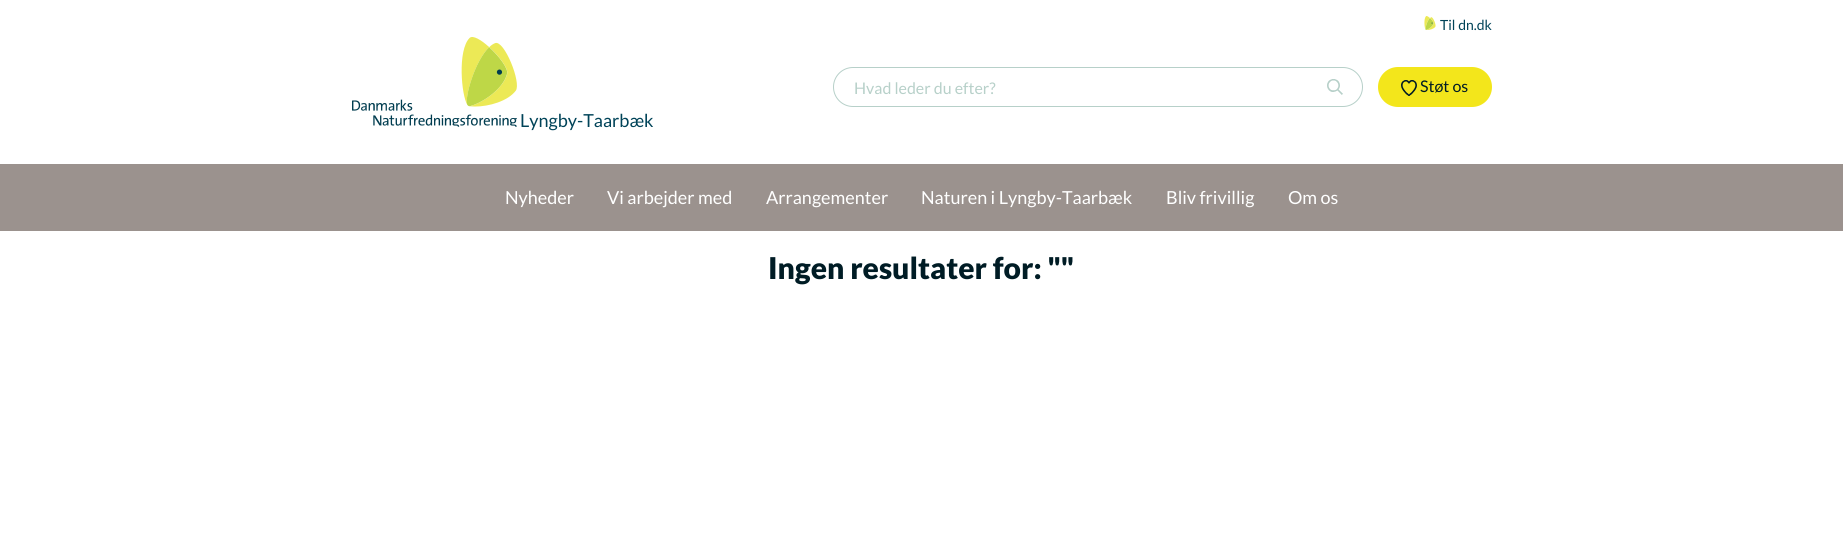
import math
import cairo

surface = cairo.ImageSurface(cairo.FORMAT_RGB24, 1843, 543)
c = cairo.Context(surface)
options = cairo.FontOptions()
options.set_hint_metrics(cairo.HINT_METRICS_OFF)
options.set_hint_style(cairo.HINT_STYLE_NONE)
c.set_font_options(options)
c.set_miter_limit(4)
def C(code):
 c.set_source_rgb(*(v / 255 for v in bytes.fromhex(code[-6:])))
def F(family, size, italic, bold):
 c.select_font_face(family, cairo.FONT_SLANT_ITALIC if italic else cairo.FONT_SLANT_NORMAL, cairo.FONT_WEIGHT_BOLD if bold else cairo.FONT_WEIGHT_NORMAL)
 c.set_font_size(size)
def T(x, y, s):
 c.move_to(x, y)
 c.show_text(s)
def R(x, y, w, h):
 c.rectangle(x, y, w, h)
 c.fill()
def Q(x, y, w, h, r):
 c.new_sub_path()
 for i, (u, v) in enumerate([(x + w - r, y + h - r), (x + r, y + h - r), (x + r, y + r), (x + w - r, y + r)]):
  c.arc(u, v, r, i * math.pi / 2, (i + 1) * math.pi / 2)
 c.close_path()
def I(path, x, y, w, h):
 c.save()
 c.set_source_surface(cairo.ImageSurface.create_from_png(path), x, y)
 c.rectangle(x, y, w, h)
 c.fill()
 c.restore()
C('ffffff')
c.paint()
I('1.png',1424,16,12,14)
F('Lato',14,0,0)
C('004358')
T(1440,30,'Til dn.dk')
Q(833.5,67.5,529,39,19.5)
C('b7d0c9')
c.set_line_width(1)
c.stroke()
F('Lato',16,0,0)
T(854,94,'Hvad leder du efter?')
I('2.png',1327,79,16,16)
C('f3e61b')
Q(1378,67,114,40,20)
c.fill()
I('3.png',1401,80,16,16)
C('001c25')
T(1420,92,'Støt os')
I('4.png',352,37,165,90)
F('Lato',18,0,0)
C('004358')
T(520,127,'Lyngby-Taarbæk')
C('9b928e')
R(0,164,1843,67)
C('ffffff')
T(505,204,'Nyheder')
T(607,204,'Vi arbejder med')
T(766,204,'Arrangementer')
T(921,204,'Naturen i Lyngby-Taarbæk')
T(1166,204,'Bliv frivillig')
T(1288,204,'Om os')
F('Lato Black',30,0,0)
C('001c25')
T(768,279,'Ingen resultater for: ""')
surface.write_to_png('o.png')
